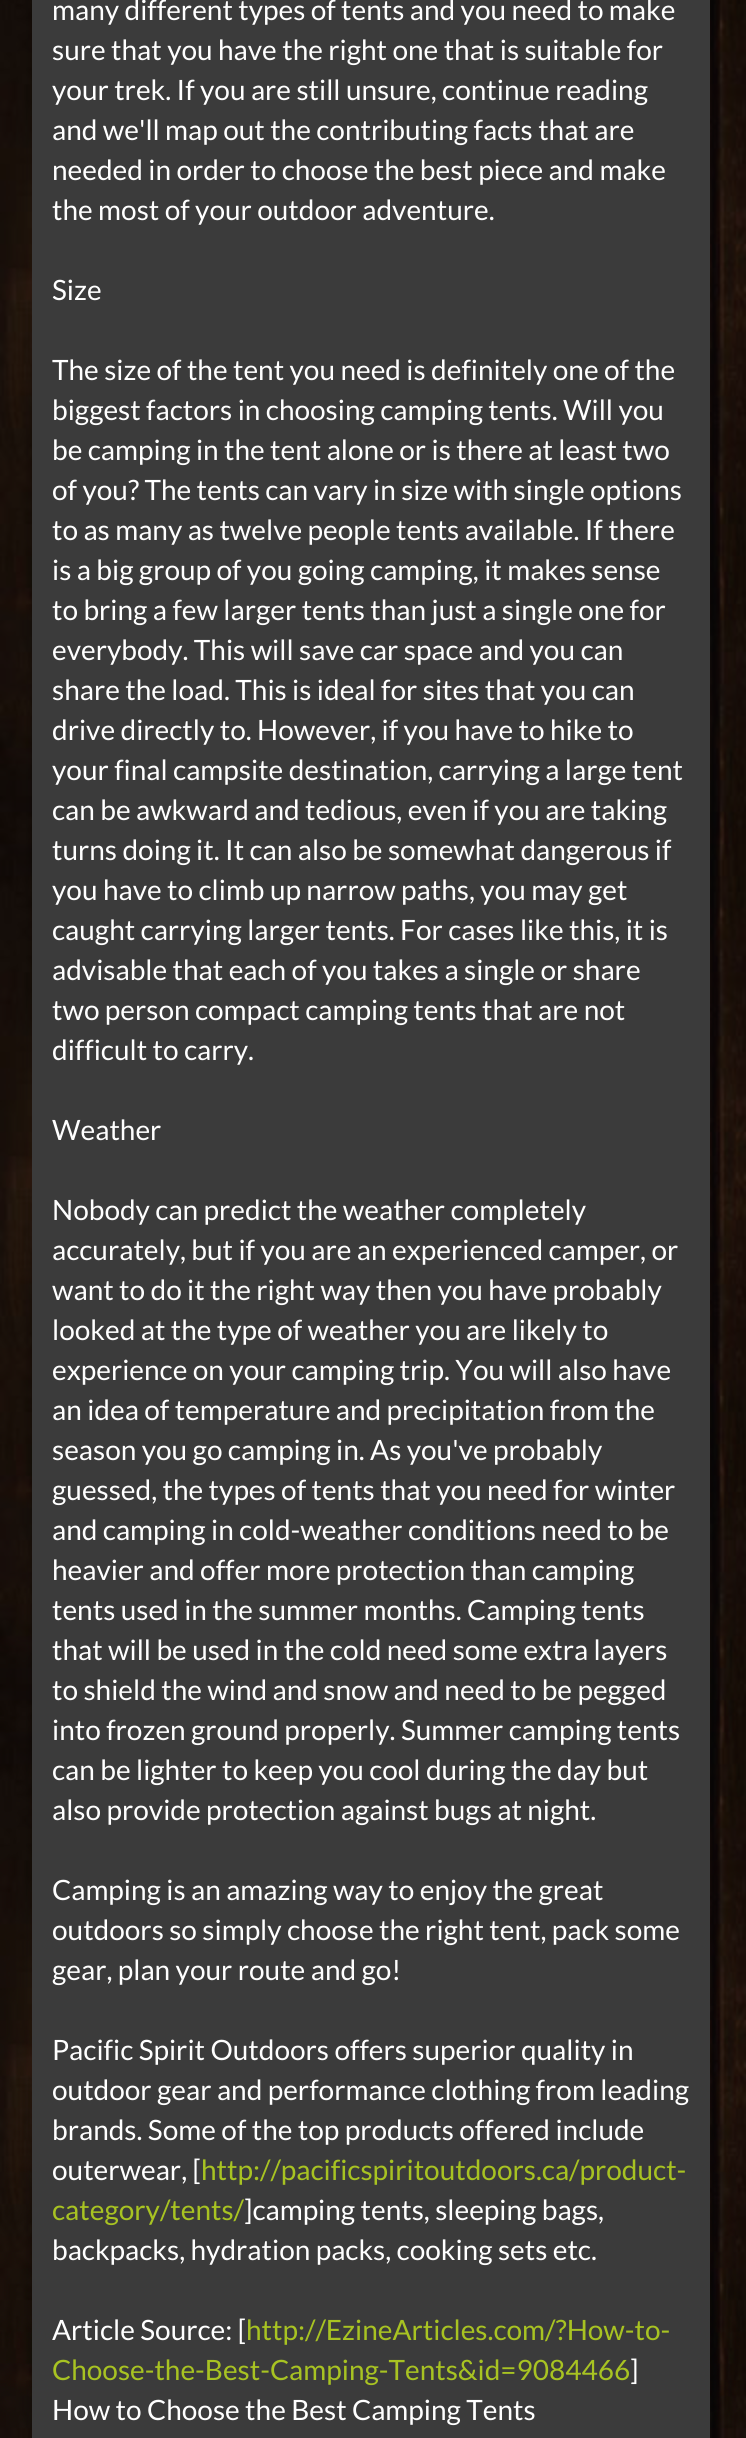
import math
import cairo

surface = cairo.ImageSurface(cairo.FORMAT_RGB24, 746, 2438)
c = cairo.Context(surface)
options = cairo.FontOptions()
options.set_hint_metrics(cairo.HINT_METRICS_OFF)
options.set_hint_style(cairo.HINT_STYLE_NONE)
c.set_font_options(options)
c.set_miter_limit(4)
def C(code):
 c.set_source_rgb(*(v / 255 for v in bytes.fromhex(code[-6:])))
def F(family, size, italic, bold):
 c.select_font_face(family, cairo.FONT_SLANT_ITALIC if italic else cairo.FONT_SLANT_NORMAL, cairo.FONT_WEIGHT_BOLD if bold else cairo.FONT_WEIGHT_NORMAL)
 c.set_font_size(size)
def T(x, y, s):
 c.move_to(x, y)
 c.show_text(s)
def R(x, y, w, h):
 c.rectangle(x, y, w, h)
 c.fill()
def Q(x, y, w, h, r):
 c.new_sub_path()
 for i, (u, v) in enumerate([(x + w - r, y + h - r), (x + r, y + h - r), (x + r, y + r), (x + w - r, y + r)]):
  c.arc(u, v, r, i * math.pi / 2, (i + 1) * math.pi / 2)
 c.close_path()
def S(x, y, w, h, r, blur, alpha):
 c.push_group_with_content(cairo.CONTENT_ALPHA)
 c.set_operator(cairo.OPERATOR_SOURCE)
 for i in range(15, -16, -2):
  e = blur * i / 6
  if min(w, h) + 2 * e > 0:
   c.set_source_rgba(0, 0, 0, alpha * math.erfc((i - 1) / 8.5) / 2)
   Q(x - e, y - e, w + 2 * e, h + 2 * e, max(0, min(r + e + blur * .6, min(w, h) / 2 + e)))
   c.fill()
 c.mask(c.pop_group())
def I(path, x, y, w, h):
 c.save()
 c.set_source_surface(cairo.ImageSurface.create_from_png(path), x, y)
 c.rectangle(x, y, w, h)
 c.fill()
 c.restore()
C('ffffff')
c.paint()
I('1.png',0,0,746,2438)
C('000000')
S(32,-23,678,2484,8,5,.2)
C('3b3b3b')
R(32,0,678,2438)
F('Lato',28,0,0)
C('ffffff')
T(52,20,'many different types of tents and you need to make')
T(52,60,'sure that you have the right one that is suitable for')
T(52,100,'your trek. If you are still unsure, continue reading')
T(52,140,'and we\'ll map out the contributing facts that are')
T(52,180,'needed in order to choose the best piece and make')
T(52,220,'the most of your outdoor adventure.')
T(52,300,'Size')
T(52,380,'The size of the tent you need is definitely one of the')
T(52,420,'biggest factors in choosing camping tents. Will you')
T(52,460,'be camping in the tent alone or is there at least two')
T(52,500,'of you? The tents can vary in size with single options')
T(52,540,'to as many as twelve people tents available. If there')
T(52,580,'is a big group of you going camping, it makes sense')
T(52,620,'to bring a few larger tents than just a single one for')
T(52,660,'everybody. This will save car space and you can')
T(52,700,'share the load. This is ideal for sites that you can')
T(52,740,'drive directly to. However, if you have to hike to')
T(52,780,'your final campsite destination, carrying a large tent')
T(52,820,'can be awkward and tedious, even if you are taking')
T(52,860,'turns doing it. It can also be somewhat dangerous if')
T(52,900,'you have to climb up narrow paths, you may get')
T(52,940,'caught carrying larger tents. For cases like this, it is')
T(52,980,'advisable that each of you takes a single or share')
T(52,1020,'two person compact camping tents that are not')
T(52,1060,'difficult to carry.')
T(52,1140,'Weather')
T(52,1220,'Nobody can predict the weather completely')
T(52,1260,'accurately, but if you are an experienced camper, or')
T(52,1300,'want to do it the right way then you have probably')
T(52,1340,'looked at the type of weather you are likely to')
T(52,1380,'experience on your camping trip. You will also have')
T(52,1420,'an idea of temperature and precipitation from the')
T(52,1460,'season you go camping in. As you\'ve probably')
T(52,1500,'guessed, the types of tents that you need for winter')
T(52,1540,'and camping in cold-weather conditions need to be')
T(52,1580,'heavier and offer more protection than camping')
T(52,1620,'tents used in the summer months. Camping tents')
T(52,1660,'that will be used in the cold need some extra layers')
T(52,1700,'to shield the wind and snow and need to be pegged')
T(52,1740,'into frozen ground properly. Summer camping tents')
T(52,1780,'can be lighter to keep you cool during the day but')
T(52,1820,'also provide protection against bugs at night.')
T(52,1900,'Camping is an amazing way to enjoy the great')
T(52,1940,'outdoors so simply choose the right tent, pack some')
T(52,1980,'gear, plan your route and go!')
T(52,2060,'Pacific Spirit Outdoors offers superior quality in')
T(52,2100,'outdoor gear and performance clothing from leading')
T(52,2140,'brands. Some of the top products offered include')
T(52,2180,'outerwear, [')
C('a8c322')
T(201,2180,'http://pacificspiritoutdoors.ca/product-')
T(52,2220,'category/tents/')
C('ffffff')
T(244,2220,']camping tents, sleeping bags,')
T(52,2260,'backpacks, hydration packs, cooking sets etc.')
T(52,2340,'Article Source: [')
C('a8c322')
T(246,2340,'http://EzineArticles.com/?How-to-')
T(52,2380,'Choose-the-Best-Camping-Tents&id=9084466')
C('ffffff')
T(630,2380,']')
T(52,2420,'How to Choose the Best Camping Tents')
surface.write_to_png('o.png')
